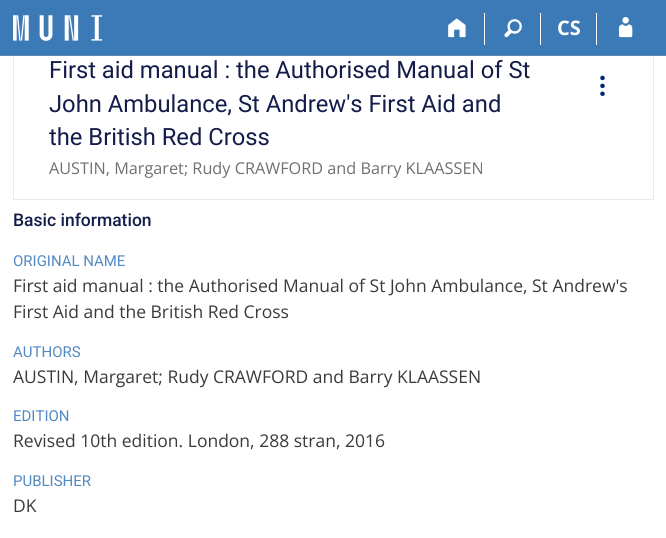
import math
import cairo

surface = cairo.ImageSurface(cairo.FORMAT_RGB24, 666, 538)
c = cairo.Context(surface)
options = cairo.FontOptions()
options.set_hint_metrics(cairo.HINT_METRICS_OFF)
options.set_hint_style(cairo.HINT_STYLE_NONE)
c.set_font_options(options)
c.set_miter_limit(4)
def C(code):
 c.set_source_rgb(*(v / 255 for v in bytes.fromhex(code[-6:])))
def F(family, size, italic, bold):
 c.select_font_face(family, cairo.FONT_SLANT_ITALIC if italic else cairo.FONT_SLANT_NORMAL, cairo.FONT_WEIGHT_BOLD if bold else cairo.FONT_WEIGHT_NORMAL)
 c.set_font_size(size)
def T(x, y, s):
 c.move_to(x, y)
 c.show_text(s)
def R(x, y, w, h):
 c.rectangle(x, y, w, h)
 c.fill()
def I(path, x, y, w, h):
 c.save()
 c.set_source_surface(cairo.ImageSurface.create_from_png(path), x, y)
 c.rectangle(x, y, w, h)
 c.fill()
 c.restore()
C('ffffff')
c.paint()
c.rectangle(13.5,4.5,640,195)
C('eaeaea')
c.set_line_width(1)
c.stroke()
C('3c7ab7')
R(0,0,666,55)
C('5c88b6')
R(0,55,666,1)
I('1.png',13,15,90,26)
C('ffffff')
R(484,13,1,32)
I('2.png',448,18,18,20)
R(540,13,1,32)
I('3.png',504,19,18,19)
R(596,13,1,32)
F('Open Sans',20,0,1)
T(557,35,'CS')
I('4.png',618,17,15,21)
F('Roboto',23.75,0,0)
C('141c4a')
T(49,78,'First aid manual : the Authorised Manual of St')
T(49,112,'John Ambulance, St Andrew\'s First Aid and')
T(49,145,'the British Red Cross')
F('Open Sans',16.25,0,0)
C('707070')
T(49,174,'AUSTIN, Margaret; Rudy CRAWFORD and Barry KLAASSEN')
I('5.png',600,75,5,21)
F('Roboto Medium',17.5,0,0)
C('141c4a')
T(13,226,'Basic information')
F('Roboto',15,0,0)
C('5389c2')
T(13,266,'ORIGINAL NAME')
F('Open Sans',17.5,0,0)
C('3a3a3a')
T(13,292,'First aid manual : the Authorised Manual of St John Ambulance, St Andrew\'s')
T(13,318,'First Aid and the British Red Cross')
F('Roboto',15,0,0)
C('5389c2')
T(13,357,'AUTHORS')
F('Open Sans',17.5,0,0)
C('3a3a3a')
T(13,383,'AUSTIN, Margaret; Rudy CRAWFORD and Barry KLAASSEN')
F('Roboto',15,0,0)
C('5389c2')
T(13,421,'EDITION')
F('Open Sans',17.5,0,0)
C('3a3a3a')
T(13,447,'Revised 10th edition. London, 288 stran, 2016')
F('Roboto',15,0,0)
C('5389c2')
T(13,486,'PUBLISHER')
F('Open Sans',17.5,0,0)
C('3a3a3a')
T(13,512,'DK')
surface.write_to_png('o.png')
